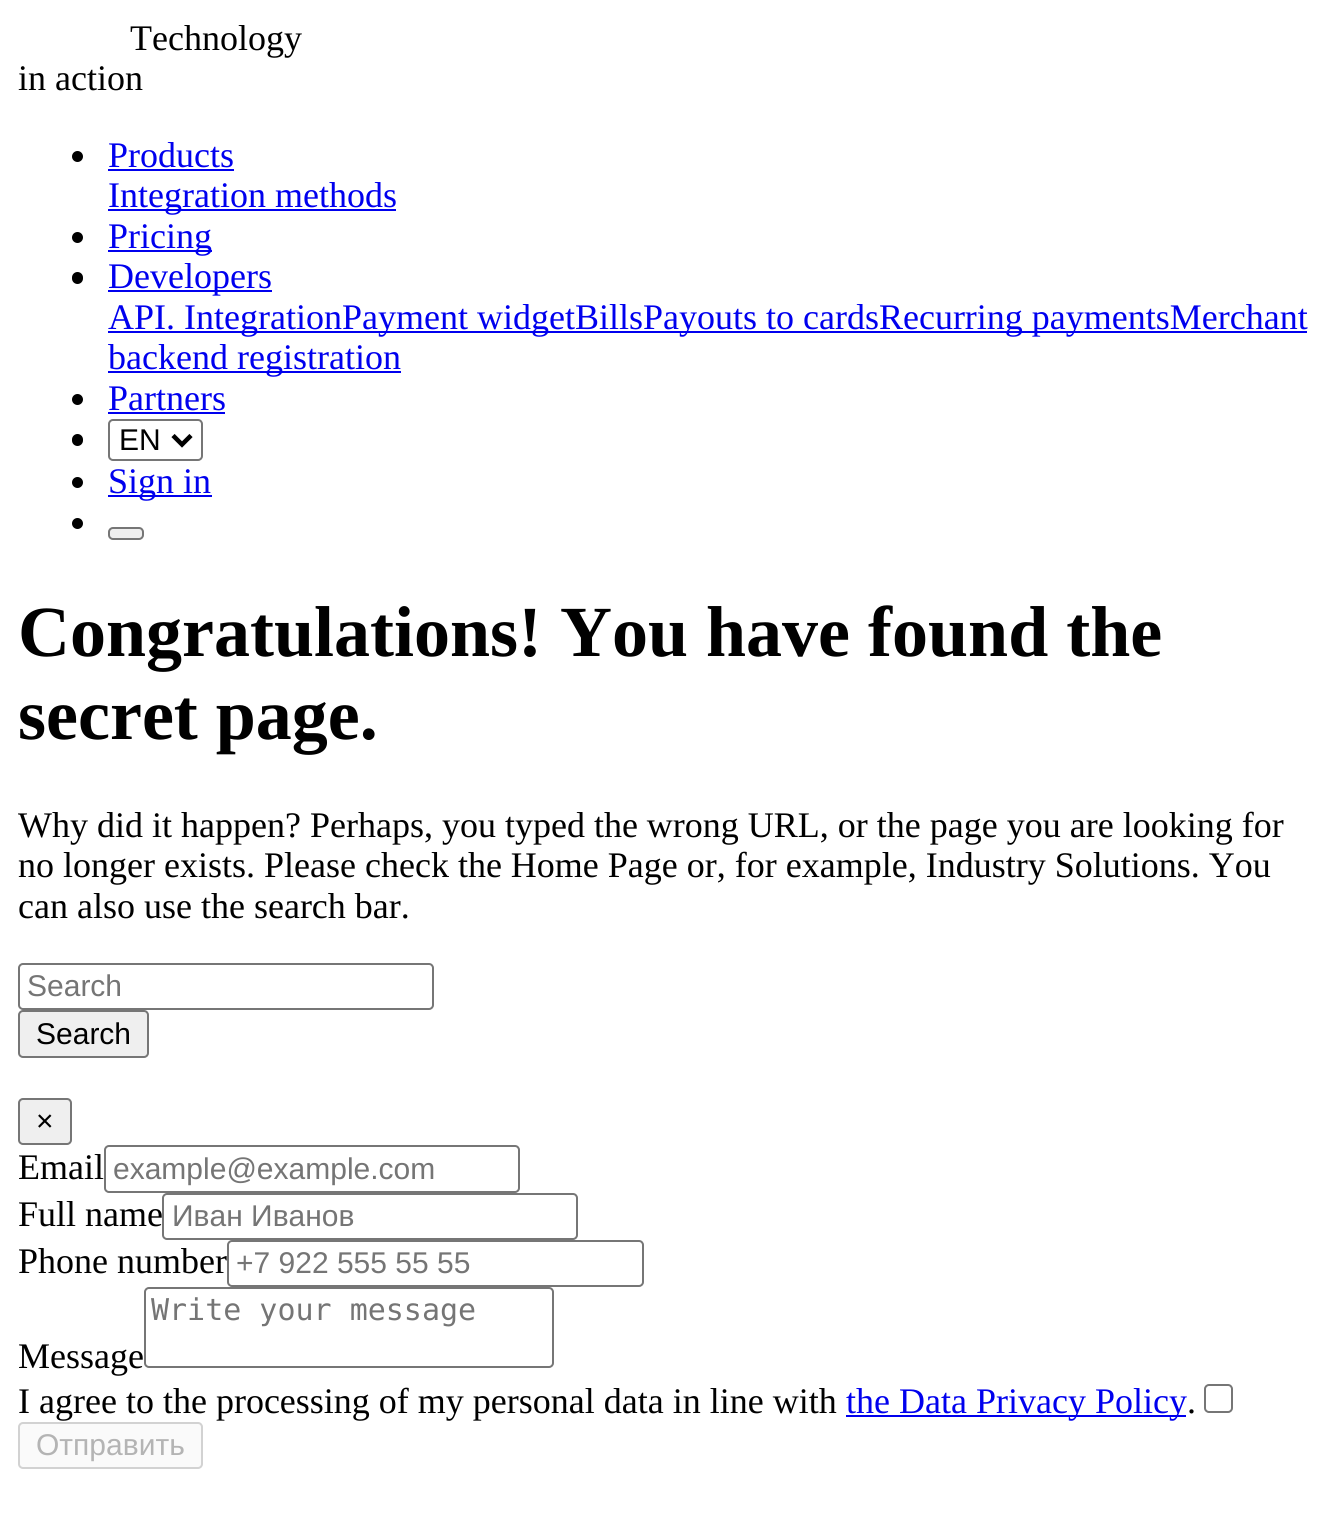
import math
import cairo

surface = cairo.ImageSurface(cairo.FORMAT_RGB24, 1332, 1539)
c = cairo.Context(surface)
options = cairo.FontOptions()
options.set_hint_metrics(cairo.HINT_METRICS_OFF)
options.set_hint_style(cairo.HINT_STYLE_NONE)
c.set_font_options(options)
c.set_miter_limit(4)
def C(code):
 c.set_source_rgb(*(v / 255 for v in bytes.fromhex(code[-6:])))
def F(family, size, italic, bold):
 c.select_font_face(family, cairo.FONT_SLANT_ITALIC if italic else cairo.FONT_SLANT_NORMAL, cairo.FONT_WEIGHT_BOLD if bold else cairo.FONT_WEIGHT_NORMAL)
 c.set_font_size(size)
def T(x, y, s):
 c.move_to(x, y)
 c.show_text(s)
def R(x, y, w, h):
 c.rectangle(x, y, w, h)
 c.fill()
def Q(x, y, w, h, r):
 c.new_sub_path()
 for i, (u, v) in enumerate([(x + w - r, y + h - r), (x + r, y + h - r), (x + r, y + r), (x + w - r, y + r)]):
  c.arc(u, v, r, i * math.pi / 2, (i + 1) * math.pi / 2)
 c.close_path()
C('ffffff')
c.paint()
F('Liberation Serif',36,0,0)
C('000000')
T(130,50,'Technology')
T(18,90,'in action')
c.new_path()
c.arc(77.5,156.5,5.5,0,2 * math.pi)
c.fill()
C('0000ee')
T(108,167,'Products')
R(108,169,126,2)
R(108,209,288,2)
T(108,207,'Integration methods')
C('000000')
c.new_path()
c.arc(77.5,237.5,5.5,0,2 * math.pi)
c.fill()
C('0000ee')
R(108,250,104,2)
T(108,248,'Pricing')
C('000000')
Q(72,272,11,12,5.5)
c.fill()
C('0000ee')
R(108,290,164,2)
T(108,288,'Developers')
R(108,331,1199,2)
T(108,329,'API. IntegrationPayment widgetBillsPayouts to cardsRecurring paymentsMerchant')
R(108,371,293,2)
T(108,369,'backend registration')
C('000000')
c.new_path()
c.arc(77.5,399.5,5.5,0,2 * math.pi)
c.fill()
C('0000ee')
T(108,410,'Partners')
R(108,412,117,2)
C('000000')
Q(72,434,11,12,5.5)
c.fill()
Q(109,420,93,40,4)
C('767676')
c.stroke()
c.new_path()
c.move_to(173,435.5)
c.line_to(182,444.5)
c.line_to(191,435.5)
C('000000')
c.set_line_width(4.5)
c.stroke()
F('Liberation Sans',30,0,0)
T(119,450,'EN')
c.new_path()
c.arc(77.5,482.5,5.5,0,2 * math.pi)
c.fill()
C('0000ee')
R(108,495,104,2)
F('Liberation Serif',36,0,0)
T(108,493,'Sign in')
C('000000')
c.new_path()
c.arc(77.5,523.5,5.5,0,2 * math.pi)
c.fill()
C('efefef')
Q(109,528,34,11,4)
c.fill_preserve()
C('767676')
c.set_line_width(2)
c.stroke()
F('Liberation Serif',72,0,1)
C('000000')
T(18,656,'Congratulations! You have found the')
T(18,739,'secret page.')
F('Liberation Serif',36,0,0)
T(18,837,'Why did it happen? Perhaps, you typed the wrong URL, or the page you are looking for')
T(18,877,'no longer exists. Please check the Home Page or, for example, Industry Solutions. You')
T(18,918,'can also use the search bar.')
Q(19,964,414,45,4)
C('767676')
c.stroke()
F('Liberation Sans',30,0,0)
C('757575')
T(27,996,'Search')
C('efefef')
Q(19,1011,129,46,4)
c.fill_preserve()
C('767676')
c.stroke()
C('000000')
T(36,1044,'Search')
C('efefef')
Q(19,1099,52,45,4)
c.fill_preserve()
C('767676')
c.stroke()
C('000000')
T(36,1131,'×')
F('Liberation Serif',36,0,0)
T(18,1179,'Email')
Q(105,1146,414,46,4)
C('767676')
c.stroke()
F('Liberation Sans',30,0,0)
C('757575')
T(113,1179,'example@example.com')
F('Liberation Serif',36,0,0)
C('000000')
T(18,1226,'Full name')
Q(163,1194,414,45,4)
C('767676')
c.stroke()
F('Liberation Sans',30,0,0)
C('757575')
T(172,1226,'Иван Иванов')
F('Liberation Serif',36,0,0)
C('000000')
T(18,1273,'Phone number')
Q(228,1241,415,45,4)
C('767676')
c.stroke()
F('Liberation Sans',30,0,0)
C('757575')
T(236,1273,'+7 922 555 55 55')
Q(145,1288,408,79,4)
C('767676')
c.stroke()
F('DejaVu Sans Mono',30,0,0)
C('757575')
T(151,1320,'Write your message')
F('Liberation Serif',36,0,0)
C('000000')
T(18,1368,'Message')
T(18,1413,'I agree to the processing of my personal data in line with')
C('0000ee')
R(846,1415,340,2)
T(846,1413,'the Data Privacy Policy')
C('000000')
T(1187,1413,'.')
Q(1205,1385,27,27,4)
C('767676')
c.stroke()
C('fafafa')
Q(19,1423,183,45,4)
c.fill_preserve()
C('d2d2d2')
c.stroke()
F('Liberation Sans',30,0,0)
C('b4b4b4')
T(36,1455,'Отправить')
surface.write_to_png('o.png')
